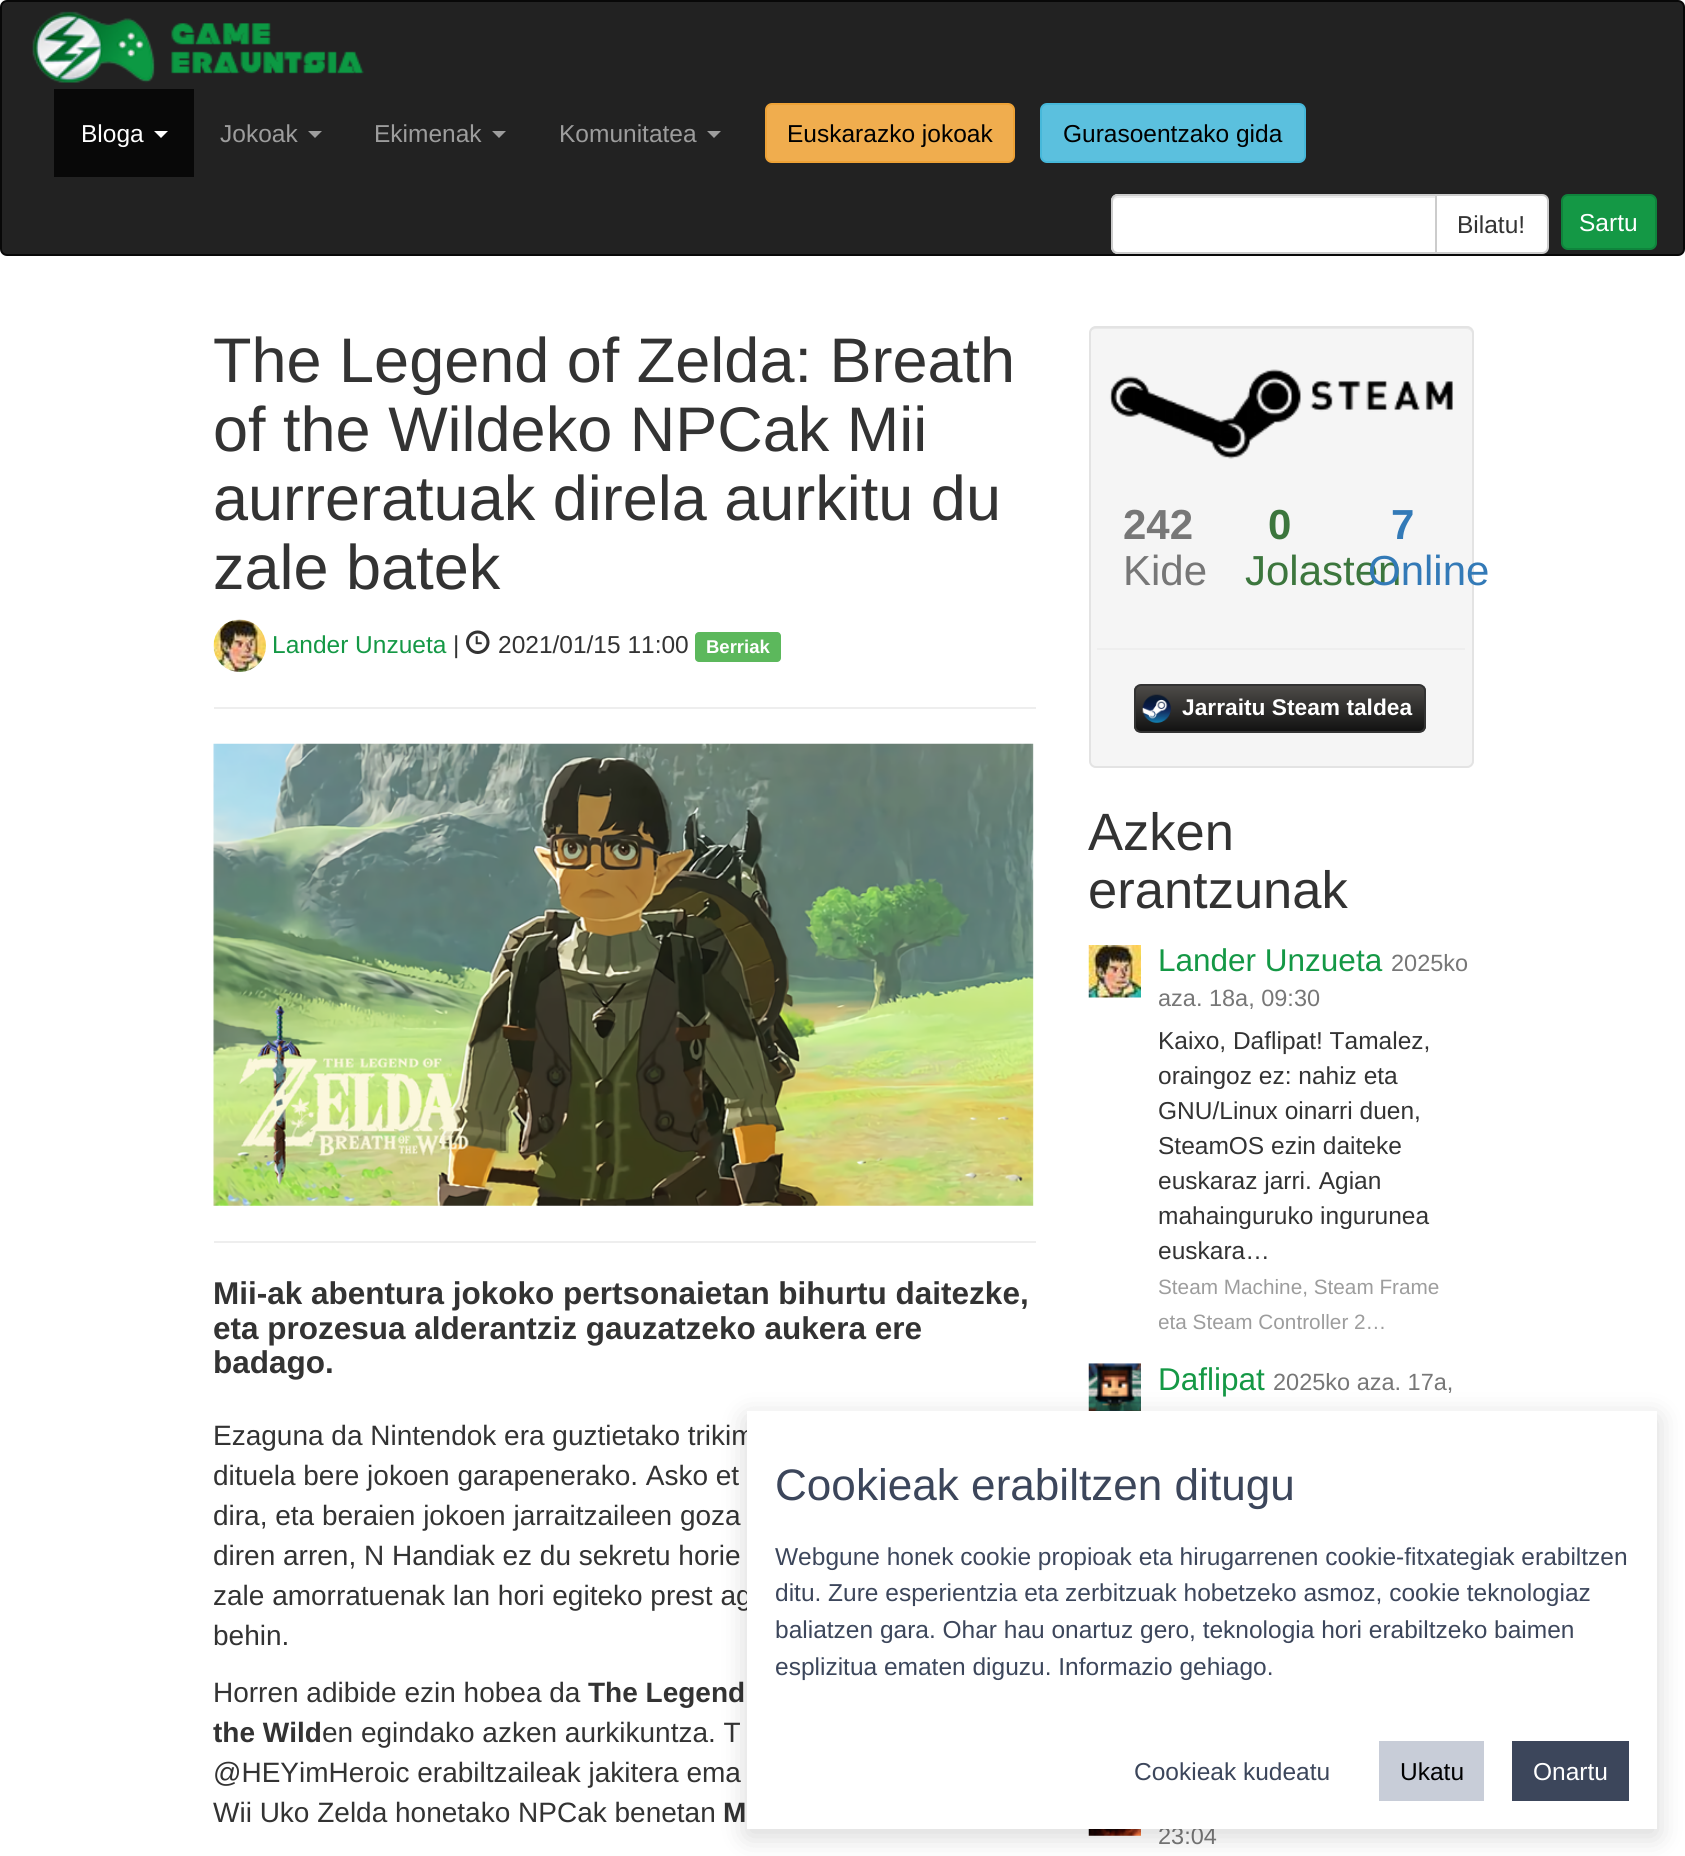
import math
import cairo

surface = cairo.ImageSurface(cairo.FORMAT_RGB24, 1685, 1856)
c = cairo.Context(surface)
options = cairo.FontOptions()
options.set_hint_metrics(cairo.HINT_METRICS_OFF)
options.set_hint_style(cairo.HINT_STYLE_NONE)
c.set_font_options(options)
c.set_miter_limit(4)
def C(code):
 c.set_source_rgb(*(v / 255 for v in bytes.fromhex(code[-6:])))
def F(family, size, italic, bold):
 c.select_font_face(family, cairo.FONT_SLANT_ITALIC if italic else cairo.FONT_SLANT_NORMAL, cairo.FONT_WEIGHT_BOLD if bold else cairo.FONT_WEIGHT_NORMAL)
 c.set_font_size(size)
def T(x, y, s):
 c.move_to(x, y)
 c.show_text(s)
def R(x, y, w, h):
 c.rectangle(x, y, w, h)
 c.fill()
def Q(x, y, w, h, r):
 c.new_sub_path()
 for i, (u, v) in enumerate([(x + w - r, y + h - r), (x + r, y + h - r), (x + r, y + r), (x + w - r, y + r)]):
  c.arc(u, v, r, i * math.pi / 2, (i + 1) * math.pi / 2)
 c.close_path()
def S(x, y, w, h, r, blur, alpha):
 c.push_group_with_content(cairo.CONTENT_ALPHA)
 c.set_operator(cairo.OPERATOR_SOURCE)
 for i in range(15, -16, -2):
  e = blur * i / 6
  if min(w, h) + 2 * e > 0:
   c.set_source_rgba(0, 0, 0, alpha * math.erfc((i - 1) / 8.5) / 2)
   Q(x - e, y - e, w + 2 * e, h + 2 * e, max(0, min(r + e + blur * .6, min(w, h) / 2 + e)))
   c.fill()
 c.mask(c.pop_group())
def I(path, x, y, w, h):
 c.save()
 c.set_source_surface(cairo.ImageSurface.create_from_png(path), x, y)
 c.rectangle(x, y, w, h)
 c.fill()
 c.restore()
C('ffffff')
c.paint()
C('222222')
Q(1,1,1683,254,6)
c.fill_preserve()
C('080808')
c.stroke()
I('1.png',32,11,332,72)
R(54,89,140,88)
F('Liberation Sans',24.5,0,0)
C('ffffff')
T(81,142,'Bloga')
c.new_path()
c.move_to(154,131)
c.line_to(168,131)
c.line_to(161,138)
c.close_path()
c.fill()
C('9d9d9d')
T(220,142,'Jokoak')
c.new_path()
c.move_to(308,131)
c.line_to(322,131)
c.line_to(315,138)
c.close_path()
c.fill()
T(374,142,'Ekimenak')
c.new_path()
c.move_to(492,131)
c.line_to(506,131)
c.line_to(499,138)
c.close_path()
c.fill()
T(559,142,'Komunitatea')
c.new_path()
c.move_to(707,131)
c.line_to(721,131)
c.line_to(714,138)
c.close_path()
c.fill()
C('f0ad4e')
Q(766,104,248,58,6)
c.fill_preserve()
C('eea236')
c.stroke()
C('000000')
T(787,142,'Euskarazko jokoak')
C('5bc0de')
Q(1041,104,264,58,6)
c.fill_preserve()
C('46b8da')
c.stroke()
C('000000')
T(1063,142,'Gurasoentzako gida')
C('ffffff')
c.new_path()
c.move_to(1118,194)
c.line_to(1437,194)
c.line_to(1437,254)
c.line_to(1118,254)
c.curve_to(1114,254,1111,251,1111,247)
c.line_to(1111,201)
c.curve_to(1111,197,1114,194,1118,194)
c.close_path()
c.fill()
C('ececec')
c.new_path()
c.move_to(1118,198)
c.line_to(1435,198)
c.line_to(1435,196)
c.line_to(1118,196)
c.curve_to(1115,196,1113,198,1113,201)
c.line_to(1113,203)
c.curve_to(1113,200,1115,198,1118,198)
c.close_path()
c.fill()
c.new_path()
c.move_to(1118,195)
c.line_to(1436,195)
c.line_to(1436,253)
c.line_to(1118,253)
c.curve_to(1114.5,253,1112,250.5,1112,247)
c.line_to(1112,201)
c.curve_to(1112,197.5,1114.5,195,1118,195)
c.close_path()
C('cccccc')
c.stroke()
C('ffffff')
c.new_path()
c.move_to(1436,195)
c.line_to(1542,195)
c.curve_to(1545.5,195,1548,197.5,1548,201)
c.line_to(1548,247)
c.curve_to(1548,250.5,1545.5,253,1542,253)
c.line_to(1436,253)
c.close_path()
c.fill_preserve()
C('cccccc')
c.stroke()
C('333333')
T(1457,233,'Bilatu!')
C('149845')
Q(1562,195,94,54,6)
c.fill_preserve()
C('0f843c')
c.stroke()
C('ffffff')
T(1579,231,'Sartu')
F('Liberation Sans',63,0,0)
C('333333')
T(213,382,'The Legend of Zelda: Breath')
T(213,451,'of the Wildeko NPCak Mii')
T(213,520,'aurreratuak direla aurkitu du')
T(213,589,'zale batek')
I('2.png',213,619,53,53)
F('Liberation Sans',24.5,0,0)
C('149845')
T(272,653,'Lander Unzueta')
C('333333')
T(453,653,'|')
I('3.png',466,630,24,24)
T(498,653,'2021/01/15 11:00')
C('5cb85c')
Q(695,632,86,30,4)
c.fill()
F('Liberation Sans',18.5,0,1)
C('ffffff')
T(706,653,'Berriak')
C('eeeeee')
R(214,707,822,2)
I('4.png',213,743,821,463)
R(214,1241,822,2)
F('Liberation Sans',31.5,0,1)
C('333333')
T(213,1304,'Mii-ak abentura jokoko pertsonaietan bihurtu daitezke,')
T(213,1339,'eta prozesua alderantziz gauzatzeko aukera ere')
T(213,1373,'badago.')
F('Liberation Sans',28,0,0)
T(213,1445,'Ezaguna da Nintendok era guztietako trikim')
T(213,1485,'dituela bere jokoen garapenerako. Asko et')
T(213,1525,'dira, eta beraien jokoen jarraitzaileen goza')
T(213,1565,'diren arren, N Handiak ez du sekretu horie')
T(213,1605,'zale amorratuenak lan hori egiteko prest ag')
T(213,1645,'behin.')
T(213,1702,'Horren adibide ezin hobea da')
F('Liberation Sans',28,0,1)
T(588,1702,'The Legend')
T(213,1742,'the Wild')
F('Liberation Sans',28,0,0)
T(322,1742,'en egindako azken aurkikuntza. T')
T(213,1782,'@HEYimHeroic erabiltzaileak jakitera ema')
T(213,1822,'Wii Uko Zelda honetako NPCak benetan')
F('Liberation Sans',28,0,1)
T(723,1822,'M')
C('f5f5f5')
Q(1089,326,385,442,7)
c.fill()
C('e9e9e9')
c.new_path()
c.move_to(1096,329)
c.line_to(1466,329)
c.curve_to(1469,329,1472,331,1472,334)
c.line_to(1472,332)
c.curve_to(1472,329,1470,327,1467,327)
c.line_to(1095,327)
c.curve_to(1092,327,1090,329,1090,332)
c.line_to(1090,334)
c.curve_to(1090,331,1093,329,1096,329)
c.close_path()
c.fill()
Q(1090,327,383,440,6)
C('e3e3e3')
c.stroke()
I('5.png',1109,369,344,90)
F('Liberation Sans',42,0,1)
C('777777')
T(1123,539,'242')
F('Liberation Sans',42,0,0)
T(1123,585,'Kide')
F('Liberation Sans',42,0,1)
C('3c763d')
T(1268,539,'0')
F('Liberation Sans',42,0,0)
T(1245,585,'Jolasten')
F('Liberation Sans',42,0,1)
C('337ab7')
T(1391,539,'7')
F('Liberation Sans',42,0,0)
T(1368,585,'Online')
C('eeeeee')
R(1097,648,368,2)
c.save()
Q(1134,684,292,49,7)
c.clip()
gradient = cairo.LinearGradient(1136,686,1136,732)
gradient.add_color_stop_rgba(0,0.302,0.294,0.282,1)
gradient.add_color_stop_rgba(1,0.067,0.067,0.067,1)
c.set_source(gradient)
R(1134,686,292,46)
c.restore()
Q(1135,685,290,47,6)
C('333333')
c.stroke()
I('6.png',1142,694,29,29)
F('Liberation Sans',22.75,0,1)
C('ffffff')
T(1182,715,'Jarraitu Steam taldea')
F('Liberation Sans',52.5,0,0)
C('333333')
T(1088,850,'Azken')
T(1088,908,'erantzunak')
I('7.png',1088,945,53,53)
F('Liberation Sans',31.5,0,0)
C('149845')
T(1158,971,'Lander Unzueta')
F('Liberation Sans',23.5,0,0)
C('777777')
T(1391,971,'2025ko')
c.save()
c.rectangle(1159,945,315,392)
c.clip()
T(1158,1006,'aza. 18a, 09:30')
c.restore()
F('Liberation Sans',24.5,0,0)
C('333333')
T(1158,1049,'Kaixo, Daflipat! Tamalez,')
c.save()
c.rectangle(1159,945,315,392)
c.clip()
T(1158,1084,'oraingoz ez: nahiz eta')
c.restore()
T(1158,1119,'GNU/Linux oinarri duen,')
T(1158,1154,'SteamOS ezin daiteke')
c.save()
c.rectangle(1159,945,315,392)
c.clip()
T(1158,1189,'euskaraz jarri. Agian')
c.restore()
T(1158,1224,'mahainguruko ingurunea')
c.save()
c.rectangle(1159,945,315,392)
c.clip()
T(1158,1259,'euskara…')
c.restore()
F('Liberation Sans',20.75,0,0)
C('9d9d9d')
T(1158,1294,'Steam Machine, Steam Frame')
c.save()
c.rectangle(1159,945,315,392)
c.clip()
T(1158,1329,'eta Steam Controller 2…')
c.restore()
I('8.png',1088,1363,53,48)
F('Liberation Sans',31.5,0,0)
C('149845')
T(1158,1390,'Daflipat')
F('Liberation Sans',23.5,0,0)
C('777777')
T(1273,1390,'2025ko aza. 17a,')
I('9.png',1088,1829,53,7)
T(1158,1844,'23:04')
C('000000')
S(747,1418,910,418,0,14,.16)
C('ffffff')
R(747,1411,910,418)
F('Liberation Sans',44.1,0,0)
C('3c465b')
T(775,1500,'Cookieak erabiltzen ditugu')
F('Liberation Sans',24.5,0,0)
T(775,1565,'Webgune honek cookie propioak eta hirugarrenen cookie-fitxategiak erabiltzen')
T(775,1601,'ditu. Zure esperientzia eta zerbitzuak hobetzeko asmoz, cookie teknologiaz')
T(775,1638,'baliatzen gara. Ohar hau onartuz gero, teknologia hori erabiltzeko baimen')
T(775,1675,'esplizitua ematen diguzu. Informazio gehiago.')
T(1134,1780,'Cookieak kudeatu')
C('c8cdd8')
R(1379,1741,105,60)
C('000000')
T(1400,1780,'Ukatu')
C('3c465b')
R(1512,1741,117,60)
C('ffffff')
T(1533,1780,'Onartu')
surface.write_to_png('o.png')
